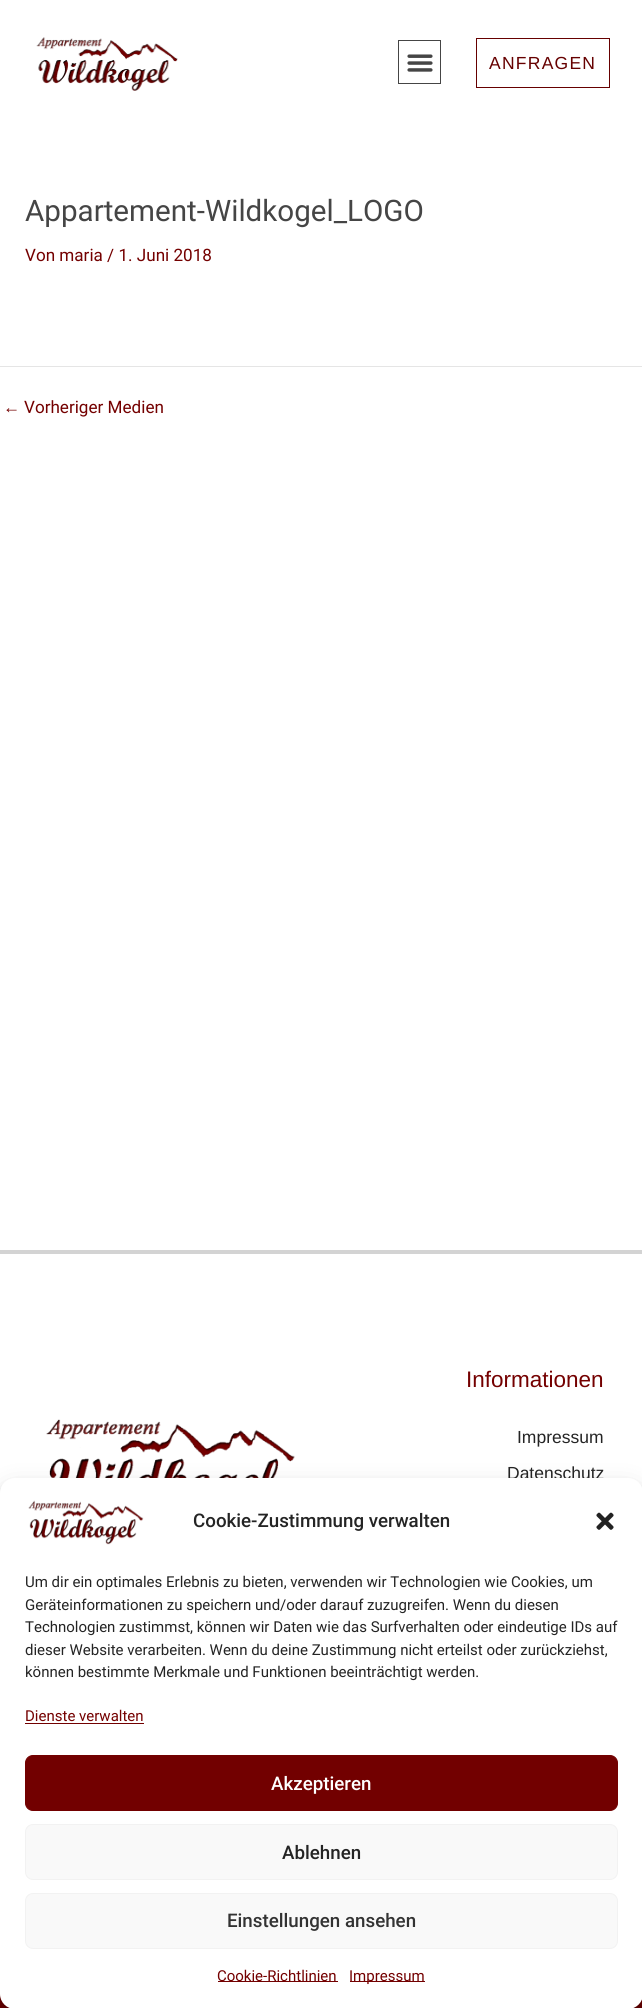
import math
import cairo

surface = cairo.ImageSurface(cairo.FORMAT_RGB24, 642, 2008)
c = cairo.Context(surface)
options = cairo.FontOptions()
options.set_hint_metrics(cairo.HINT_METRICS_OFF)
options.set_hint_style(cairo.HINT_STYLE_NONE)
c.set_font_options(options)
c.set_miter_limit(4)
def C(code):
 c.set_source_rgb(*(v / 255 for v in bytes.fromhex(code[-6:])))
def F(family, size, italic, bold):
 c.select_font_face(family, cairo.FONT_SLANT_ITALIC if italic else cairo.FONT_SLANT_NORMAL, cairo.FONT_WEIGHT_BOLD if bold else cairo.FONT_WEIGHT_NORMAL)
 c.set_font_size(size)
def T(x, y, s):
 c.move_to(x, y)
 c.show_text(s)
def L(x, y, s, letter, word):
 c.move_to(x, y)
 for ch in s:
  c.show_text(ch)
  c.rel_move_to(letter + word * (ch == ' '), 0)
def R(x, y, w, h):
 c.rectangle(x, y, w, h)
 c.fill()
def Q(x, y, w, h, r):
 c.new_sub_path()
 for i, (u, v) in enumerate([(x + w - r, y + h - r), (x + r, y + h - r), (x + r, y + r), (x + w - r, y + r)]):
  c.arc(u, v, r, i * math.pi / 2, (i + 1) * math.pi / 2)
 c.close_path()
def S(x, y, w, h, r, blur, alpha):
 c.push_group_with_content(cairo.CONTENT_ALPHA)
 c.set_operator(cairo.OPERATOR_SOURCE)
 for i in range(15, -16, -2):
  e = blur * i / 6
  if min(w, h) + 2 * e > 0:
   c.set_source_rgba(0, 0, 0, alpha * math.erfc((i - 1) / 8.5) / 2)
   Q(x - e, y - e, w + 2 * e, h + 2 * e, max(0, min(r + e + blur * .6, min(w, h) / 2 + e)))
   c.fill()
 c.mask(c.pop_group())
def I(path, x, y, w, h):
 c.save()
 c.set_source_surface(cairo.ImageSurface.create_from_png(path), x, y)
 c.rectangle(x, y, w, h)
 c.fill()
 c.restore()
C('ffffff')
c.paint()
I('1.png',36,37,142,54)
c.rectangle(398.5,40.5,42,43)
C('454545')
c.set_line_width(1)
c.stroke()
I('2.png',407,54,26,18)
c.rectangle(476.5,38.5,133,49)
C('660000')
c.stroke()
F('Liberation Sans',17.5,0,0)
L(489,69,'ANFRAGEN',1.25,0)
F('Roboto',29.6,0,0)
C('454545')
T(25,221,'Appartement-Wildkogel_LOGO')
F('Roboto',17.1,0,0)
C('740000')
T(25,261,'Von maria / 1. Juni 2018')
C('e5e5e5')
R(0,366,642,1)
F('Liberation Sans',17.1,0,0)
C('740000')
T(3,413,'←')
F('Roboto',17.1,0,0)
T(24,413,'Vorheriger Medien')
C('d3d3d3')
R(0,1250,642,4)
I('3.png',46,1419,249,59)
F('Liberation Sans',22.5,0,0)
C('740000')
T(466,1387,'Informationen')
F('Liberation Sans',17.5,0,0)
C('242424')
T(517,1443,'Impressum')
T(507,1479,'Datenschutz')
C('740000')
R(0,1994,642,14)
C('000000')
S(0,1485,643,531,15,4,.23)
S(0,1490,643,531,15,12.5,.19)
C('ffffff')
Q(0,1478,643,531,15)
c.fill()
I('4.png',28,1500,116,45)
F('Roboto Medium',18.75,0,0)
C('242424')
T(193,1527,'Cookie-Zustimmung verwalten')
I('5.png',596,1512,18,18)
F('Roboto',15,0,0)
T(25,1587,'Um dir ein optimales Erlebnis zu bieten, verwenden wir Technologien wie Cookies, um')
T(25,1610,'Geräteinformationen zu speichern und/oder darauf zuzugreifen. Wenn du diesen')
T(25,1632,'Technologien zustimmst, können wir Daten wie das Surfverhalten oder eindeutige IDs auf')
T(25,1655,'dieser Website verarbeiten. Wenn du deine Zustimmung nicht erteilst oder zurückziehst,')
T(25,1677,'können bestimmte Merkmale und Funktionen beeinträchtigt werden.')
C('740000')
T(25,1721,'Dienste verwalten')
C('720000')
R(25,1723,119,1)
Q(25.5,1755.5,592,55,7.5)
c.fill_preserve()
c.stroke()
F('Roboto Medium',18.75,0,0)
C('ffffff')
T(271,1790,'Akzeptieren')
C('f9f9f9')
Q(25.5,1824.5,592,55,7.5)
c.fill_preserve()
C('f2f2f2')
c.stroke()
C('242424')
T(282,1859,'Ablehnen')
C('f9f9f9')
Q(25.5,1893.5,592,55,7.5)
c.fill_preserve()
C('f2f2f2')
c.stroke()
C('333333')
T(227,1927,'Einstellungen ansehen')
C('720000')
R(218,1981,120,1)
F('Roboto',15,0,0)
C('740000')
T(217,1981,'Cookie-Richtlinien')
C('720000')
R(350,1981,75,1)
C('740000')
T(349,1981,'Impressum')
surface.write_to_png('o.png')
